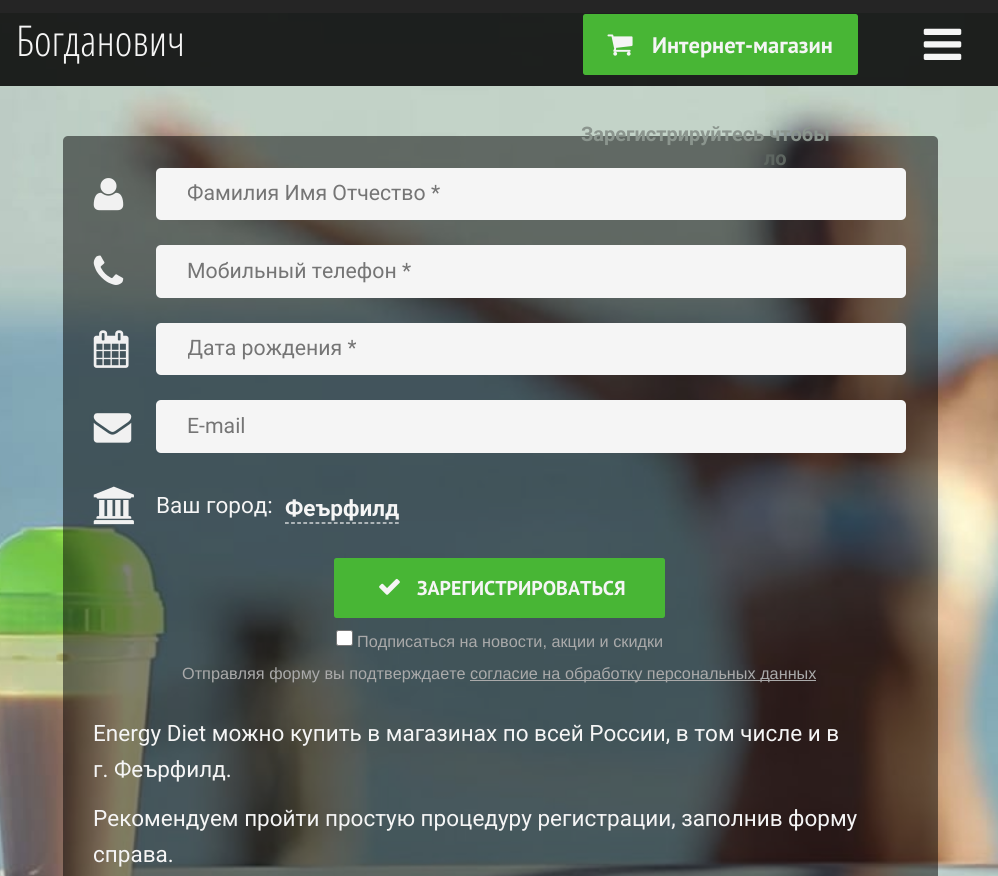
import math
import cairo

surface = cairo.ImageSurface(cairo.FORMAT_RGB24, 998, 876)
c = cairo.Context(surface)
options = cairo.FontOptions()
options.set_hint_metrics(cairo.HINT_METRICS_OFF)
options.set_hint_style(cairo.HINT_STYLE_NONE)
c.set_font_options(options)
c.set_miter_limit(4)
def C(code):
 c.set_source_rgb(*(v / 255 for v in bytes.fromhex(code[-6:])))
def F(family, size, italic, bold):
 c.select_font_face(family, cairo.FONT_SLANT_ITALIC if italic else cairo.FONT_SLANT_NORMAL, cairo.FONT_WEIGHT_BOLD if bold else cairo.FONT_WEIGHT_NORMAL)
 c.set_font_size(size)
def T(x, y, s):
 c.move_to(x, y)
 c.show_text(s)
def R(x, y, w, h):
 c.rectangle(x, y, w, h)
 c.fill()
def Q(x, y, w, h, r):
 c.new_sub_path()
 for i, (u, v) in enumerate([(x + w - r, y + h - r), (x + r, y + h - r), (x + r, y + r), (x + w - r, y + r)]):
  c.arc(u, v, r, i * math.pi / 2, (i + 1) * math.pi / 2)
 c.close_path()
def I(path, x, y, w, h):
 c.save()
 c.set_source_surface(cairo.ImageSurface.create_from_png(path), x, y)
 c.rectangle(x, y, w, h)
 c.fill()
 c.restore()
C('fafafa')
c.paint()
I('3.png',0,13,998,863)
c.set_source_rgba(0,0,0,0.85)
R(0,0,998,86)
F('Open Sans Condensed Light',42.5,0,0)
C('f5f5f5')
T(16,56,'Богданович')
C('48b635')
Q(583,14,275,61,2.5)
c.fill()
I('1.png',607,34,26,22)
F('PT Sans',22.5,0,1)
C('f5f5f5')
T(652,53,'Интернет-магазин')
c.set_source_rgba(0,0,0,0.5)
Q(63,136,875,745,5)
c.fill()
F('Roboto',20,0,1)
C('8b958e')
T(581,141,'Зарегистрируйтесь чтобы')
C('5e6661')
T(764,165,'ло')
I('2.png',923,28,39,32)
I('4.png',93,178,31,33)
C('f5f5f5')
Q(156,168,750,52,5)
c.fill()
c.save()
c.rectangle(188,180,687,25)
c.clip()
F('Roboto',21.25,0,0)
C('757575')
T(187,200,'Фамилия Имя Отчество *')
c.restore()
I('5.png',93,255,31,30)
Q(156,245,750,53,5)
c.fill()
F('Roboto',21.25,0,0)
C('757575')
T(187,278,'Мобильный телефон *')
I('6.png',93,330,36,38)
C('f5f5f5')
Q(156,323,750,52,5)
c.fill()
c.save()
c.rectangle(188,335,687,25)
c.clip()
C('757575')
T(187,355,'Дата рождения *')
c.restore()
I('7.png',93,413,39,30)
Q(156,400,750,53,5)
c.fill()
C('757575')
T(187,433,'E-mail')
I('8.png',93,486,41,39)
F('Roboto',22.5,0,0)
C('f5f5f5')
T(156,513,'Ваш город:')
c.new_path()
c.move_to(285,523)
c.line_to(399,523)
c.set_line_width(1.2)
c.set_dash([3.75,2.36])
c.stroke()
F('Roboto',22.5,0,1)
T(285,516,'Феърфилд')
C('48b635')
Q(334,558,331,60,2.5)
c.fill()
I('9.png',379,578,21,17)
F('PT Sans',20,0,1)
C('f5f5f5')
T(417,595,'ЗАРЕГИСТРИРОВАТЬСЯ')
C('ffffff')
Q(336.5,630.5,16,15,2)
c.fill_preserve()
C('767676')
c.set_line_width(1)
c.set_dash([])
c.stroke()
F('Liberation Sans',16.25,0,0)
C('aaaaaa')
T(357,647,'Подписаться на новости, акции и скидки')
T(182,679,'Отправляя форму вы подтверждаете')
R(470,680,346,1)
T(470,679,'согласие на обработку персональных данных')
F('Roboto',22.5,0,0)
C('f5f5f5')
T(93,741,'Energy Diet можно купить в магазинах по всей России, в том числе и в')
T(93,777,'г. Феърфилд.')
T(93,826,'Рекомендуем пройти простую процедуру регистрации, заполнив форму')
T(93,862,'справа.')
surface.write_to_png('o.png')
